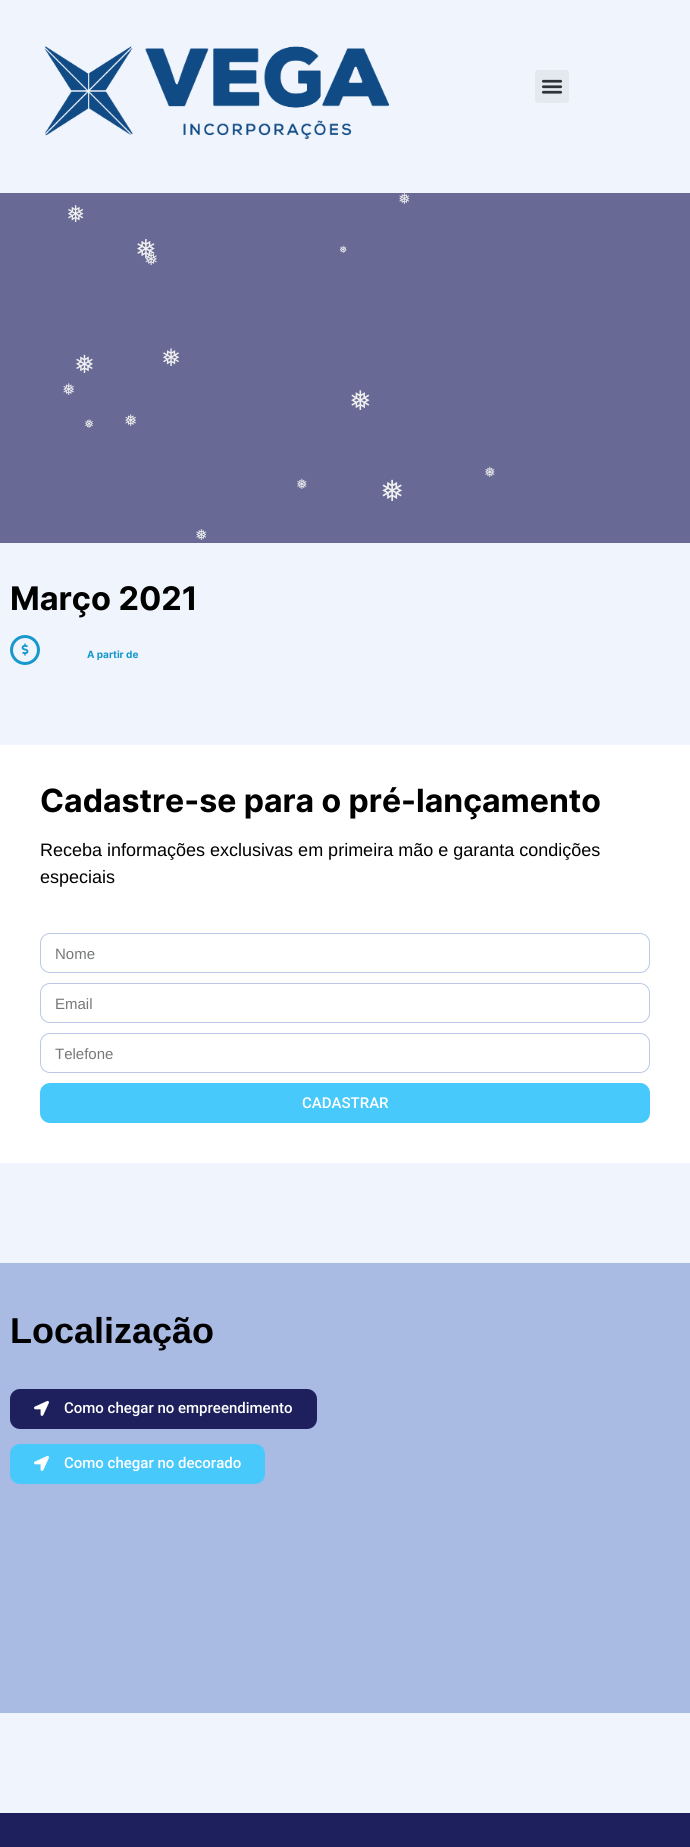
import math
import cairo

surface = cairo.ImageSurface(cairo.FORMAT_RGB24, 690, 1847)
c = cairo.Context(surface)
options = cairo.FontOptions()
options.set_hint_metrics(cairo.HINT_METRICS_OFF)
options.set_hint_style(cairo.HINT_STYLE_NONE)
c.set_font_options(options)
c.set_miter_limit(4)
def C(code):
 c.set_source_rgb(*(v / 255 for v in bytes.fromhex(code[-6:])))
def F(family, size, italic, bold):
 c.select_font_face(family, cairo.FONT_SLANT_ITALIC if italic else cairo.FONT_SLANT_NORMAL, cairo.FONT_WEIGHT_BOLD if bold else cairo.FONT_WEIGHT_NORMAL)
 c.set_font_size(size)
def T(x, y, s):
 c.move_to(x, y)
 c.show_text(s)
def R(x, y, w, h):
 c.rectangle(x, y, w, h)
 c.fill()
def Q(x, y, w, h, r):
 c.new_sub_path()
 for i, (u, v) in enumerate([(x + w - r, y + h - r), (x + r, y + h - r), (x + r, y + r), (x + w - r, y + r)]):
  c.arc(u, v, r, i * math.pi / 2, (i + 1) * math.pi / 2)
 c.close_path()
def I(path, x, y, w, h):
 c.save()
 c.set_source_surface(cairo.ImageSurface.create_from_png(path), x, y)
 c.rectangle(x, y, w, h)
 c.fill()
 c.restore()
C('f0f4fc')
c.paint()
I('1.png',44,46,346,94)
C('e4e8ef')
Q(535,70,34,33,3)
c.fill()
I('2.png',541,79,22,15)
C('686a95')
R(0,193,690,350)
F('DejaVu Sans',15,0,0)
C('efefef')
T(398,204,'❅')
F('DejaVu Sans',23,0,0)
T(66,222,'❅')
F('DejaVu Sans',26,0,0)
T(135,258,'❅')
F('DejaVu Sans',10,0,0)
T(339,253,'❅')
F('DejaVu Sans',17,0,0)
T(144,265,'❅')
F('DejaVu Sans',25,0,0)
T(74,373,'❅')
F('DejaVu Sans',24,0,0)
T(161,366,'❅')
F('DejaVu Sans',16,0,0)
T(62,395,'❅')
F('DejaVu Sans',27,0,0)
T(349,410,'❅')
F('DejaVu Sans',12,0,0)
T(84,428,'❅')
F('DejaVu Sans',16,0,0)
T(124,426,'❅')
F('DejaVu Sans',14,0,0)
T(484,477,'❅')
T(296,489,'❅')
F('DejaVu Sans',29,0,0)
T(380,501,'❅')
F('DejaVu Sans',15,0,0)
T(195,540,'❅')
F('Inter',32.5,0,1)
C('000000')
T(10,610,'Março 2021')
c.new_path()
c.arc(25,650,13.5,0,2 * math.pi)
C('1698cc')
c.set_line_width(3)
c.stroke()
I('3.png',21,643,8,13)
F('Inter',10,0,1)
T(87,658,'A partir de')
C('ffffff')
R(0,745,690,418)
F('Inter',32,0,1)
C('000000')
T(40,812,'Cadastre-se para o pré-lançamento')
F('Liberation Sans',18,0,0)
T(40,856,'Receba informações exclusivas em primeira mão e garanta condições')
T(40,883,'especiais')
Q(40.5,933.5,609,39,9.5)
C('bbc7e5')
c.set_line_width(1)
c.stroke()
F('Liberation Sans',15,0,0)
C('767778')
T(55,959,'Nome')
Q(40.5,983.5,609,39,9.5)
C('bbc7e5')
c.stroke()
C('767778')
T(55,1009,'Email')
Q(40.5,1033.5,609,39,9.5)
C('bbc7e5')
c.stroke()
C('767778')
T(55,1059,'Telefone')
C('48c9fc')
Q(40,1083,610,40,10)
c.fill()
F('Roboto Medium',15,0,0)
C('ffffff')
T(302,1108,'CADASTRAR')
C('a9bae3')
R(0,1263,690,450)
F('Liberation Sans',36,0,1)
C('000000')
T(10,1343,'Localização')
C('1e205e')
Q(10,1389,307,40,10)
c.fill()
I('4.png',34,1400,15,16)
F('Roboto Medium',15,0,0)
C('ffffff')
T(64,1413,'Como chegar no empreendimento')
C('48c9fc')
Q(10,1444,255,40,10)
c.fill()
I('5.png',34,1455,15,16)
C('ffffff')
T(64,1468,'Como chegar no decorado')
C('1e205e')
R(0,1813,690,34)
surface.write_to_png('o.png')
